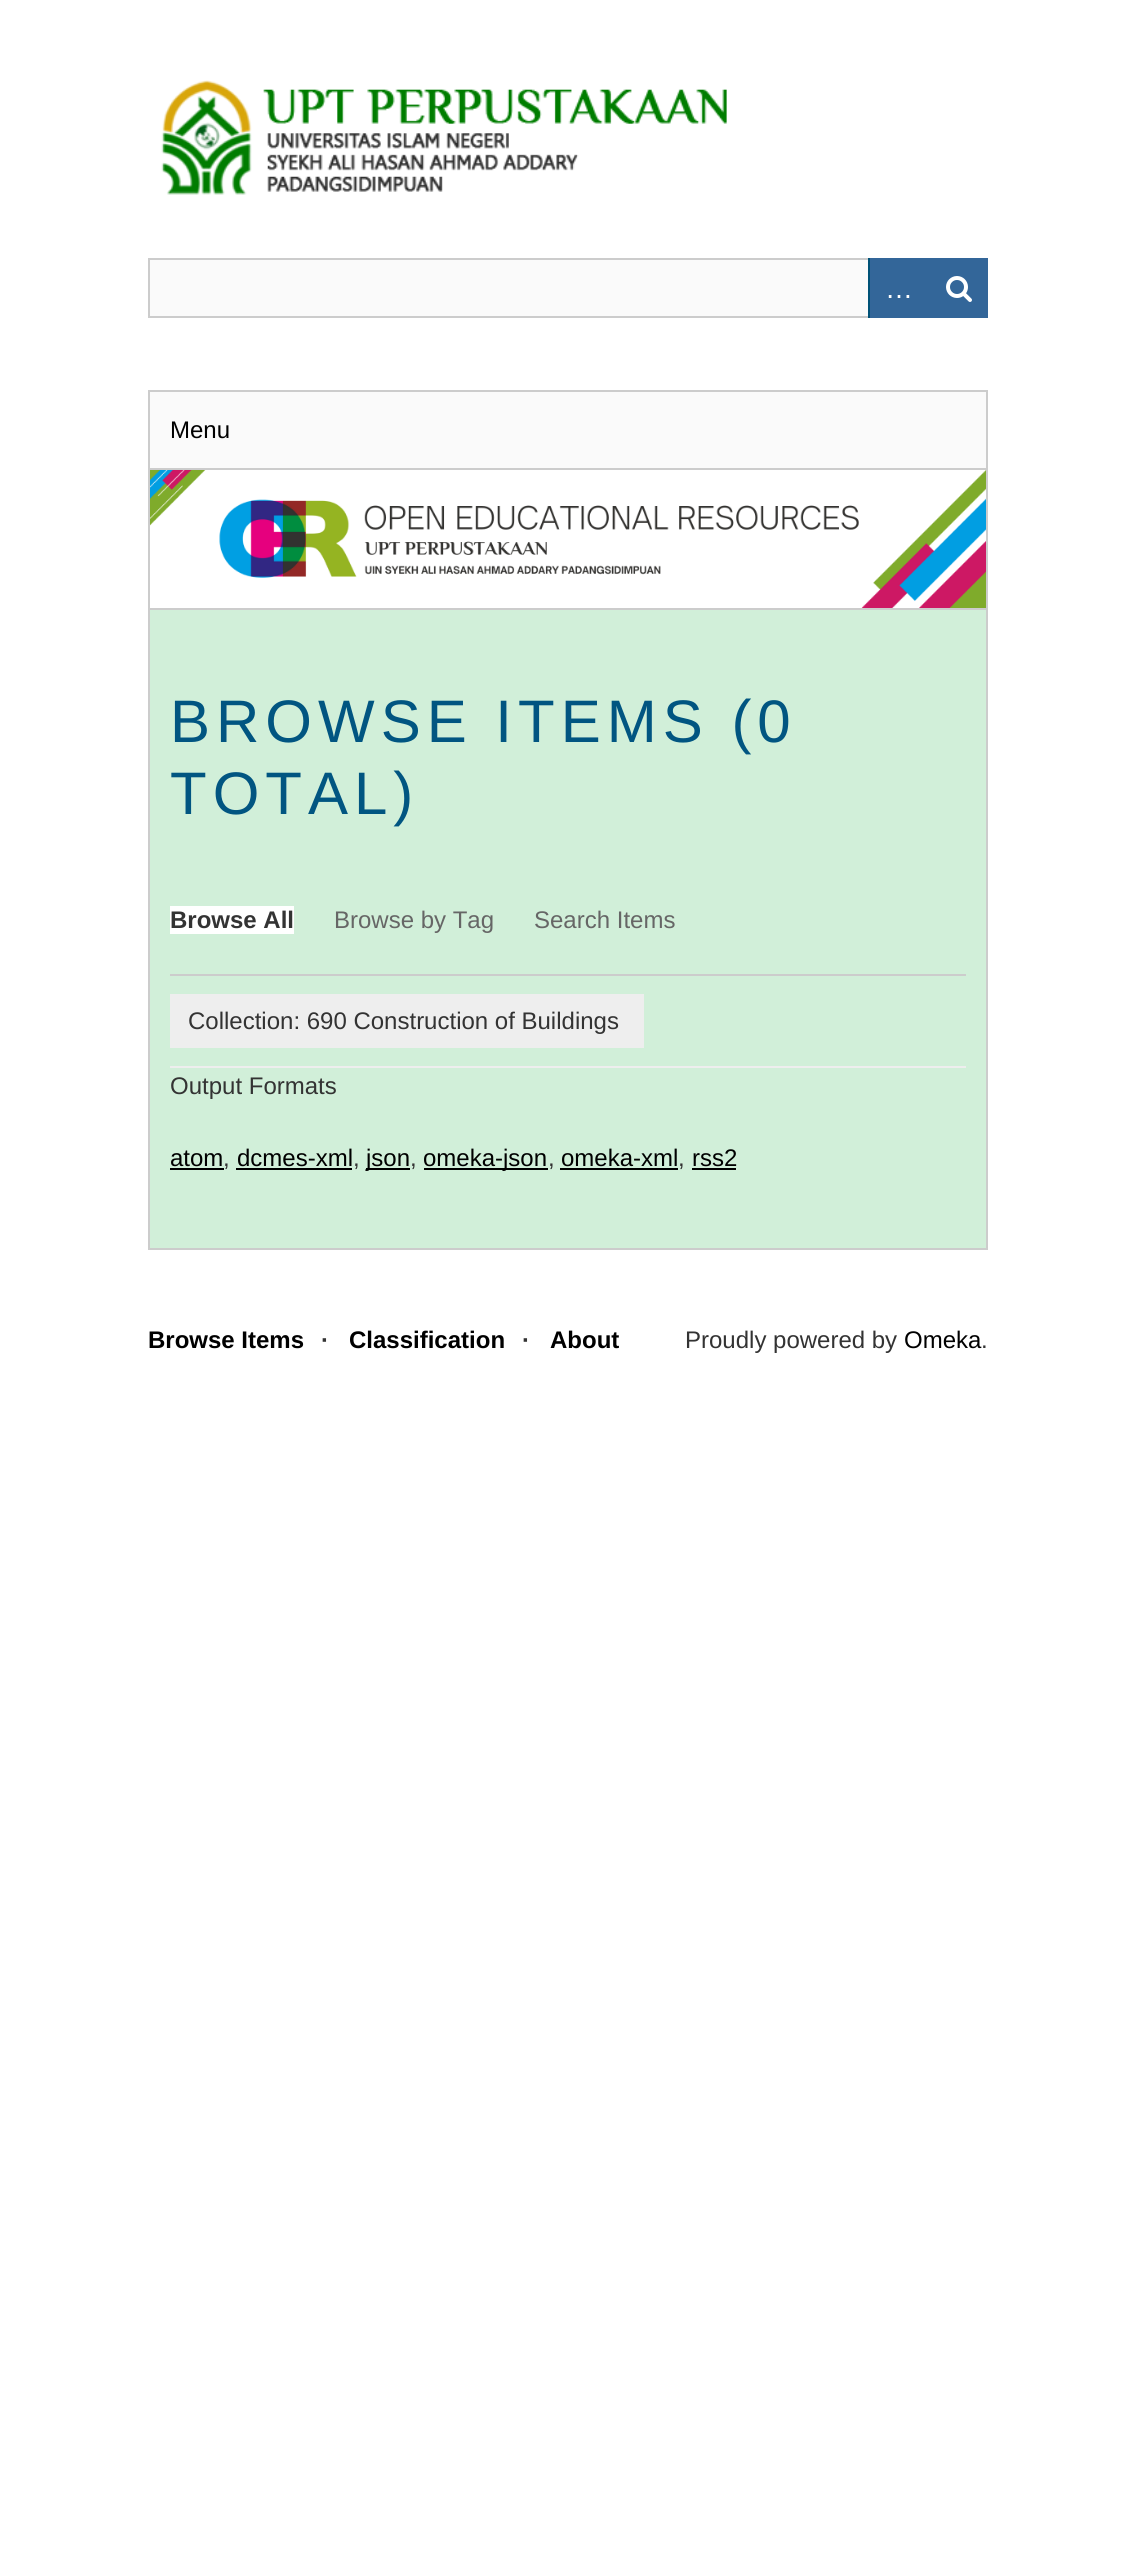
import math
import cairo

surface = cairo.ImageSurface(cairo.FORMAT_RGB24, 1136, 2565)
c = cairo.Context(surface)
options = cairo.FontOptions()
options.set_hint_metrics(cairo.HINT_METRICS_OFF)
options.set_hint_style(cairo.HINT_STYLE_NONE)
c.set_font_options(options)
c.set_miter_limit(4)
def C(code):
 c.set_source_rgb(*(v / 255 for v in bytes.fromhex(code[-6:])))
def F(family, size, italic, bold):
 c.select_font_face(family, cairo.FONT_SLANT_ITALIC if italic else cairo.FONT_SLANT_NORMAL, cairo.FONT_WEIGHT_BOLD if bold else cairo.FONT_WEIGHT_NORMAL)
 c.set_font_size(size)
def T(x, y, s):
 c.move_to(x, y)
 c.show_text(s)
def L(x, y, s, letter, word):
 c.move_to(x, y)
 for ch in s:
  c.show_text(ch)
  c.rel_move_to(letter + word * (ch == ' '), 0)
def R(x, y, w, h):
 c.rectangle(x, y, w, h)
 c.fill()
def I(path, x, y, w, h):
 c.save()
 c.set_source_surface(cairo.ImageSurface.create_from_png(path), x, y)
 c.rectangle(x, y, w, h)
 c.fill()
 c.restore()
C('ffffff')
c.paint()
I('1.png',161,80,566,115)
C('fafafa')
R(150,260,718,56)
c.rectangle(149,259,838,58)
C('cccccc')
c.stroke()
C('005177')
R(868,258,2,60)
C('336699')
R(870,258,118,60)
F('Liberation Sans',28,0,0)
C('ffffff')
T(885,298,'…')
I('2.png',946,276,26,26)
C('fafafa')
R(150,392,836,76)
C('cccccc')
R(148,390,840,2)
R(986,390,2,78)
R(148,390,2,78)
F('Liberation Sans',24,0,0)
C('000000')
T(170,438,'Menu')
C('cccccc')
R(148,468,840,2)
R(148,468,2,140)
I('3.png',150,470,836,138)
R(986,468,2,140)
C('d1efd9')
c.rectangle(149,609,838,640)
c.fill_preserve()
C('cccccc')
c.stroke()
F('Liberation Sans',60,0,0)
C('015581')
L(170,742,'BROWSE ITEMS (0',6,0)
L(170,814,'TOTAL)',6,0)
C('cccccc')
R(170,974,796,2)
C('ffffff')
R(170,906,124,28)
F('Liberation Sans',24,0,1)
C('333333')
T(170,928,'Browse All')
F('Liberation Sans',24,0,0)
C('666666')
T(334,928,'Browse by Tag')
T(534,928,'Search Items')
C('eeeeee')
R(170,1066,796,2)
R(170,994,474,54)
C('333333')
T(188,1029,'Collection: 690 Construction of Buildings')
T(170,1094,'Output Formats')
C('000000')
T(170,1166,'atom')
R(170,1168,54,2)
C('333333')
T(223,1166,',')
C('000000')
T(237,1166,'dcmes-xml')
R(236,1168,116,2)
C('333333')
T(353,1166,',')
C('000000')
R(366,1168,44,2)
T(366,1166,'json')
C('333333')
T(410,1166,',')
C('000000')
R(424,1168,124,2)
T(423,1166,'omeka-json')
C('333333')
T(548,1166,',')
C('000000')
T(561,1166,'omeka-xml')
R(560,1168,118,2)
C('333333')
T(678,1166,',')
C('000000')
T(692,1166,'rss2')
R(692,1168,44,2)
F('Liberation Sans',24,0,1)
T(148,1348,'Browse Items')
C('333333')
T(321,1348,'·')
C('000000')
T(349,1348,'Classification')
C('333333')
T(522,1348,'·')
C('000000')
T(550,1348,'About')
F('Liberation Sans',24,0,0)
C('333333')
T(685,1348,'Proudly powered by')
C('000000')
T(904,1348,'Omeka')
C('333333')
T(981,1348,'.')
surface.write_to_png('o.png')
